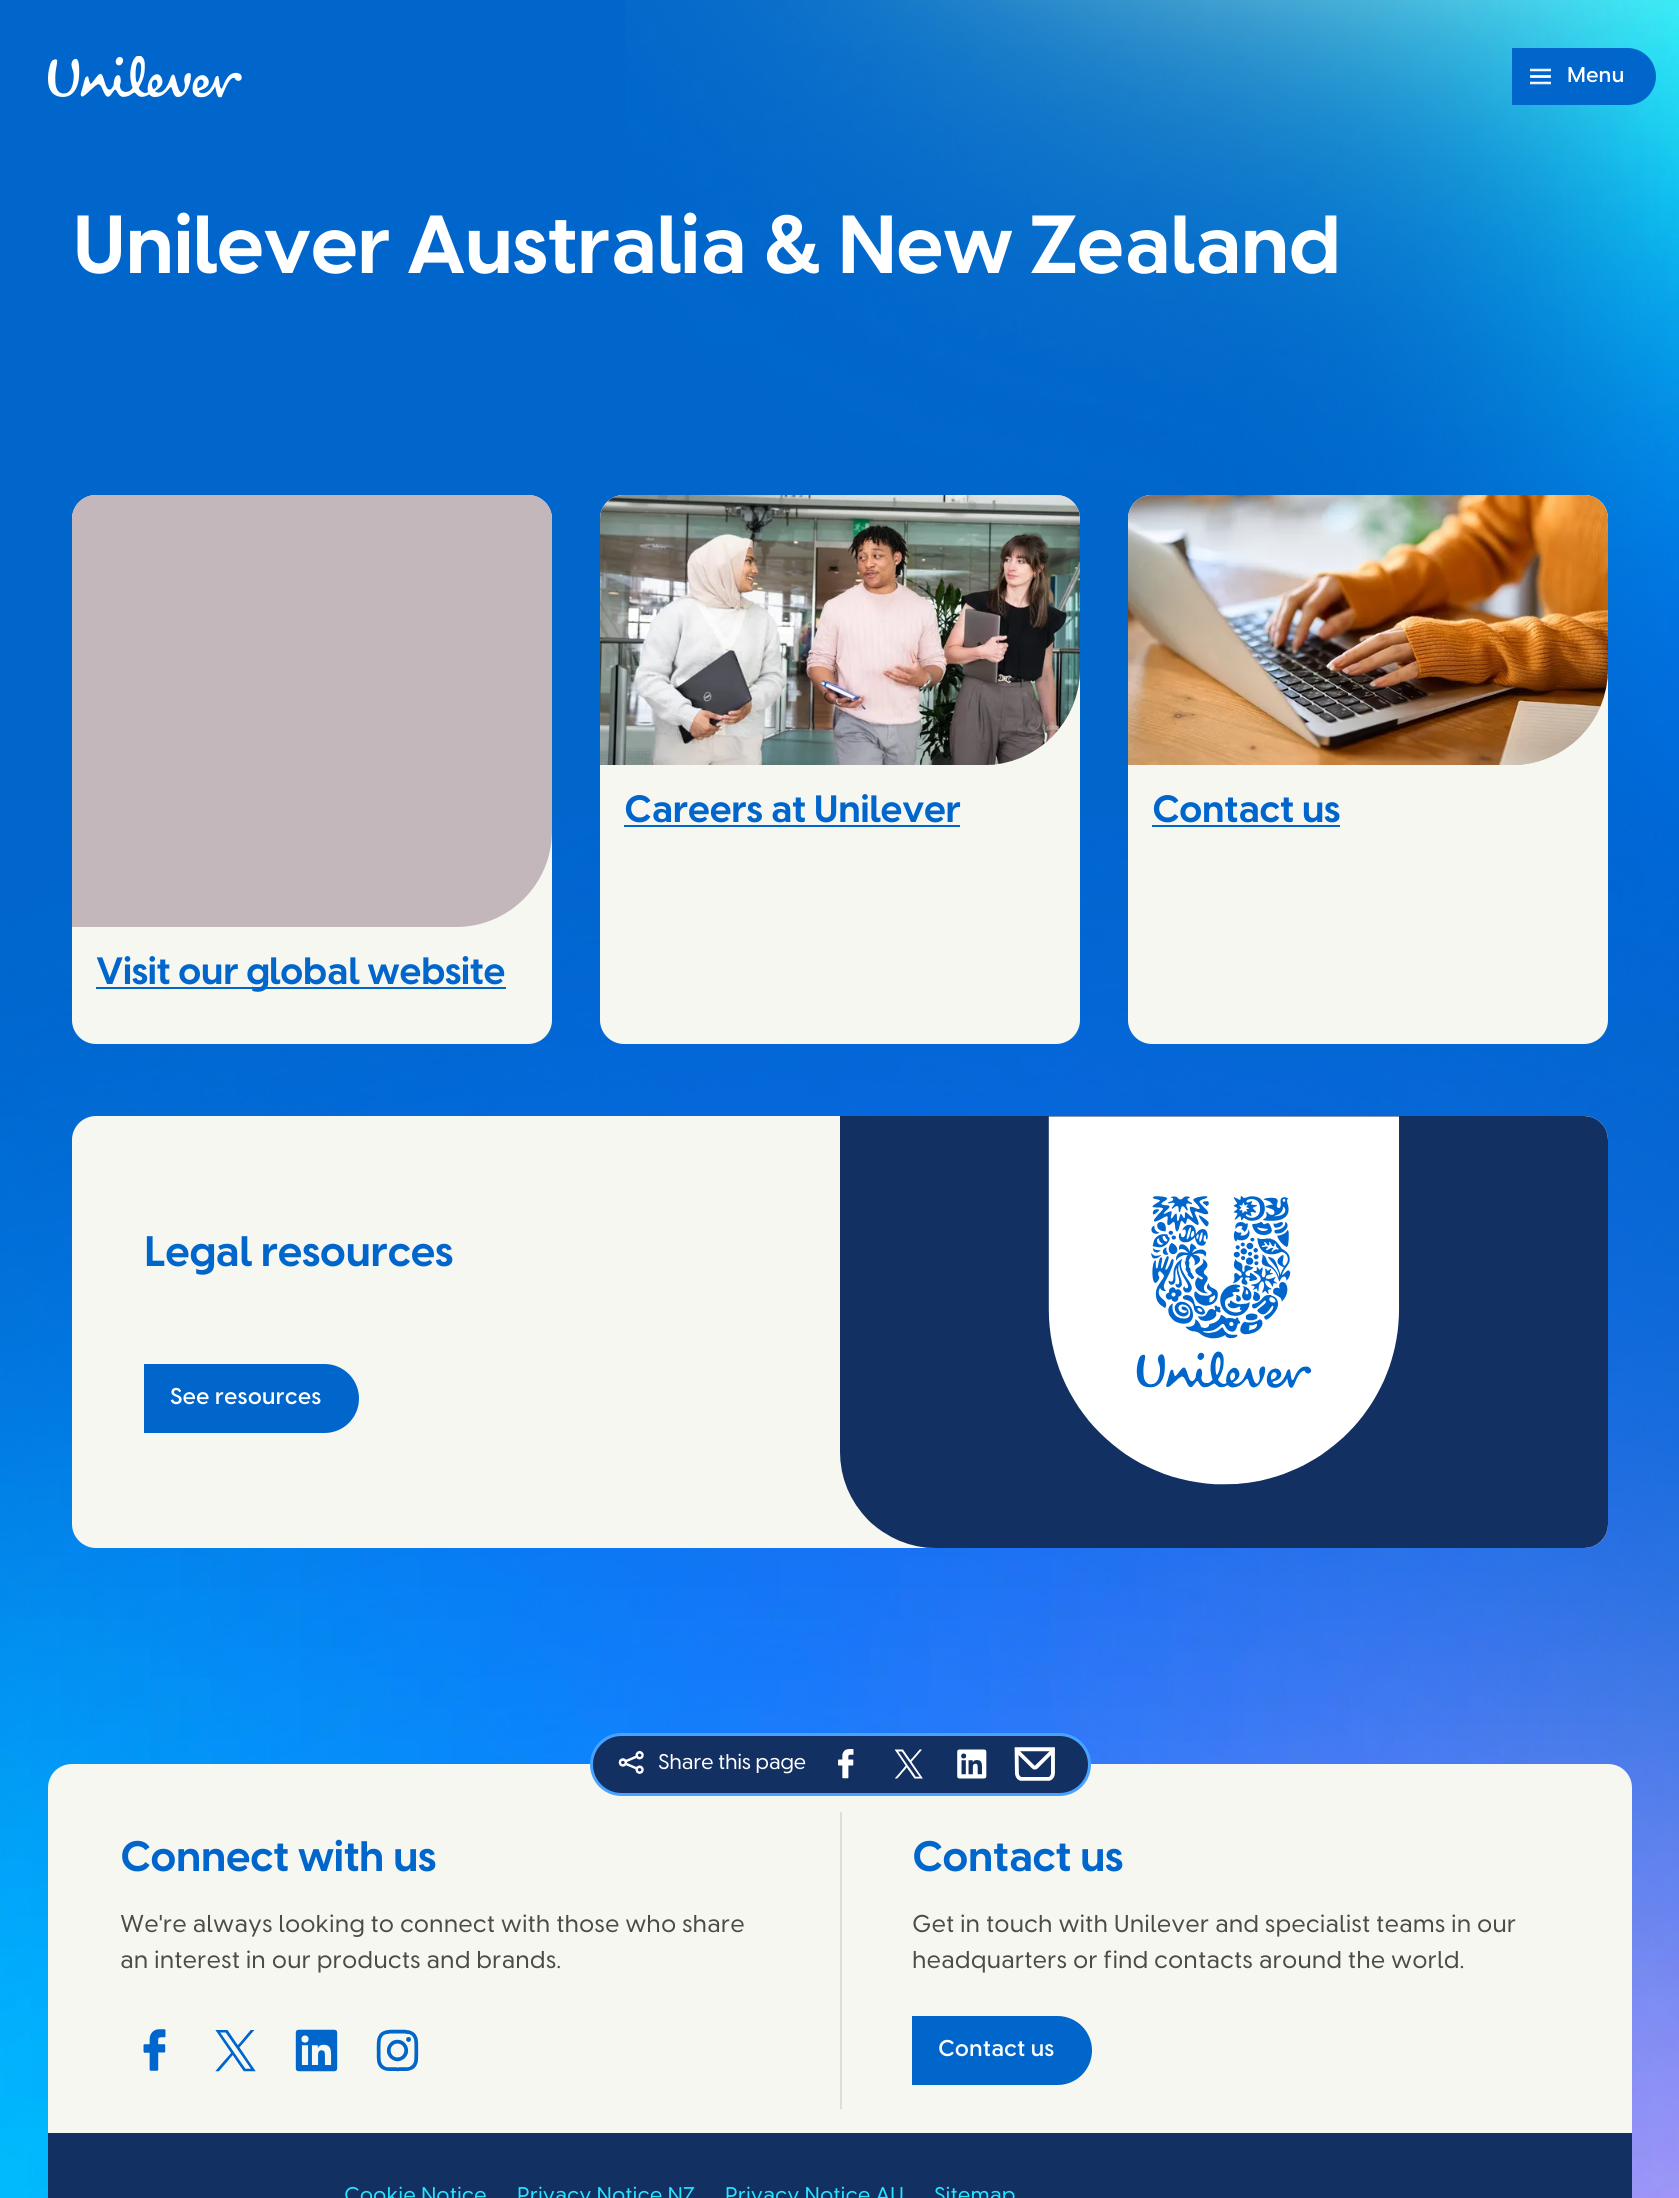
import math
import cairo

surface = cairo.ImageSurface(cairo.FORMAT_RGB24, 1679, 2198)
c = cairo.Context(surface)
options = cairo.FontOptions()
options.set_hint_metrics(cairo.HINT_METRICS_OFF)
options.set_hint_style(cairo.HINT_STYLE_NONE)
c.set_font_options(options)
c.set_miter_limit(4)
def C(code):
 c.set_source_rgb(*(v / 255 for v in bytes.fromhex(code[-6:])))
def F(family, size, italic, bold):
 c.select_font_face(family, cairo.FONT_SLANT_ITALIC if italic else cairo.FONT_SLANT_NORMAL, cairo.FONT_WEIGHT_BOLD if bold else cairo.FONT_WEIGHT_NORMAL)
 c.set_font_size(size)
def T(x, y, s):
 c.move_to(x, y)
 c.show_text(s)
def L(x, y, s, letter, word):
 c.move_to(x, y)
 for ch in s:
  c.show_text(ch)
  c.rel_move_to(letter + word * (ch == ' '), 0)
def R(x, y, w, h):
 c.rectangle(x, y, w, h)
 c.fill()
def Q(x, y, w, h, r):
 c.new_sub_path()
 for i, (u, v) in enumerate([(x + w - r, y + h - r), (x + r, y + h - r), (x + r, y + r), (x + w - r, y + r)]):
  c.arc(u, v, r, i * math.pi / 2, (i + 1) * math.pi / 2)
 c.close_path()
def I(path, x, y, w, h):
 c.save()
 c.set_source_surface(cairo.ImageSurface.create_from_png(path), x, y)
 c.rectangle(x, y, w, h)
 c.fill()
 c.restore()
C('0066cc')
c.paint()
I('1.png',625,0,1054,1018)
I('2.png',48,56,194,42)
C('0066cc')
c.new_path()
c.move_to(1513,49)
c.line_to(1627.5,49)
c.curve_to(1642.5,49,1655,61.5,1655,76.5)
c.curve_to(1655,91.5,1642.5,104,1627.5,104)
c.line_to(1513,104)
c.close_path()
c.fill_preserve()
c.stroke()
I('3.png',1530,68,21,17)
F('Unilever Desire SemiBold',21,0,0)
C('ffffff')
T(1567,82,'Menu')
F('Unilever Desire',81,0,1)
L(72,273,'Unilever Australia & New Zealand',-1.6,0)
I('16.png',0,814,1679,1384)
C('f6f7f0')
Q(600,495,480,549,24)
c.fill()
C('d7bab9')
c.new_path()
c.move_to(624,495)
c.line_to(1056,495)
c.curve_to(1069.5,495,1080,505.5,1080,519)
c.line_to(1080,669)
c.curve_to(1080,722,1037,765,984,765)
c.line_to(600,765)
c.line_to(600,519)
c.curve_to(600,505.5,610.5,495,624,495)
c.close_path()
c.fill()
I('4.png',600,495,480,270)
F('Unilever Desire',37.5,0,1)
C('0066cc')
L(624,822,'Careers at Unilever',-.75,0)
R(624,825,336,2)
C('f6f7f0')
Q(1128,495,480,549,24)
c.fill()
C('d4baa5')
c.new_path()
c.move_to(1152,495)
c.line_to(1584,495)
c.curve_to(1597.5,495,1608,505.5,1608,519)
c.line_to(1608,669)
c.curve_to(1608,722,1565,765,1512,765)
c.line_to(1128,765)
c.line_to(1128,519)
c.curve_to(1128,505.5,1138.5,495,1152,495)
c.close_path()
c.fill()
I('5.png',1128,495,480,270)
C('0066cc')
L(1152,822,'Contact us',-.75,0)
R(1152,825,188,2)
C('f6f7f0')
Q(72,495,480,549,24)
c.fill()
C('c4b7bb')
c.new_path()
c.move_to(96,495)
c.line_to(528,495)
c.curve_to(541.5,495,552,505.5,552,519)
c.line_to(552,831)
c.curve_to(552,884,509,927,456,927)
c.line_to(72,927)
c.line_to(72,519)
c.curve_to(72,505.5,82.5,495,96,495)
c.close_path()
c.fill()
C('0066cc')
R(96,987,410,2)
L(96,984,'Visit our global website',-.75,0)
C('f6f7f0')
Q(72,1116,1536,432,24)
c.fill()
F('Unilever Desire',42,0,1)
C('0066cc')
L(144,1266,'Legal resources',-.8,0)
c.new_path()
c.move_to(145,1365)
c.line_to(324.5,1365)
c.curve_to(343,1365,358,1380,358,1398.5)
c.curve_to(358,1417,343,1432,324.5,1432)
c.line_to(145,1432)
c.close_path()
c.fill_preserve()
c.stroke()
F('Unilever Desire SemiBold',22.5,0,0)
C('ffffff')
T(170,1404,'See resources')
I('6.png',840,1116,768,432)
C('f6f7f0')
c.new_path()
c.move_to(72,1764)
c.line_to(1608,1764)
c.curve_to(1621.5,1764,1632,1774.5,1632,1788)
c.line_to(1632,2133)
c.line_to(48,2133)
c.line_to(48,1788)
c.curve_to(48,1774.5,58.5,1764,72,1764)
c.close_path()
c.fill()
C('133062')
Q(591.5,1734.5,498,60,30)
c.fill_preserve()
C('47a3ff')
c.set_line_width(3)
c.stroke()
I('7.png',618,1751,26,23)
F('Unilever Desire',21,0,0)
C('ffffff')
L(658,1769,'Share this page',-.4,0)
I('8.png',838,1749,16,30)
I('9.png',894,1749,29,30)
I('10.png',957,1749,30,30)
I('11.png',1014,1747,41,34)
F('Unilever Desire',42,0,1)
C('0066cc')
L(120,1871,'Connect with us',-.8,0)
F('Unilever Desire',24,0,0)
C('4d4b46')
T(120,1932,'We\'re always looking to connect with those who share')
T(120,1968,'an interest in our products and brands.')
I('12.png',143,2029,23,42)
I('13.png',215,2030,41,42)
I('14.png',295,2029,43,43)
I('15.png',376,2029,43,43)
C('deded7')
R(840,1812,2,297)
F('Unilever Desire',42,0,1)
C('0066cc')
L(912,1871,'Contact us',-.8,0)
F('Unilever Desire',24,0,0)
C('4d4b46')
T(912,1932,'Get in touch with Unilever and specialist teams in our')
T(912,1968,'headquarters or find contacts around the world.')
C('0066cc')
c.new_path()
c.move_to(913,2017)
c.line_to(1057.5,2017)
c.curve_to(1076,2017,1091,2032,1091,2050.5)
c.curve_to(1091,2069,1076,2084,1057.5,2084)
c.line_to(913,2084)
c.close_path()
c.fill_preserve()
c.set_line_width(2)
c.stroke()
F('Unilever Desire SemiBold',22.5,0,0)
C('ffffff')
T(938,2056,'Contact us')
C('133062')
R(48,2133,1584,65)
F('Unilever Desire',21,0,0)
C('23e7ff')
T(344,2202,'Cookie Notice')
T(517,2202,'Privacy Notice NZ')
T(725,2202,'Privacy Notice AU')
T(934,2202,'Sitemap')
surface.write_to_png('o.png')
